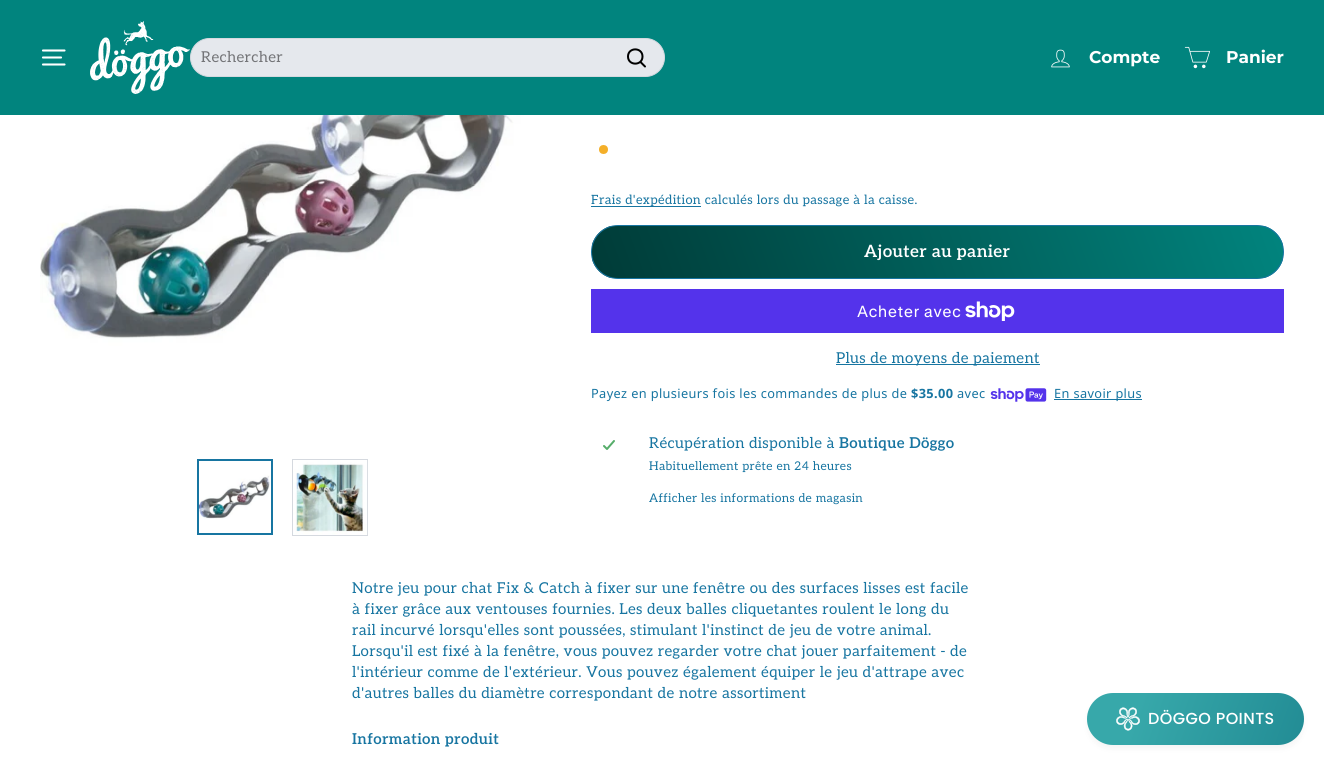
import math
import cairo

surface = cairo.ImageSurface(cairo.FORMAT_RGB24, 1324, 765)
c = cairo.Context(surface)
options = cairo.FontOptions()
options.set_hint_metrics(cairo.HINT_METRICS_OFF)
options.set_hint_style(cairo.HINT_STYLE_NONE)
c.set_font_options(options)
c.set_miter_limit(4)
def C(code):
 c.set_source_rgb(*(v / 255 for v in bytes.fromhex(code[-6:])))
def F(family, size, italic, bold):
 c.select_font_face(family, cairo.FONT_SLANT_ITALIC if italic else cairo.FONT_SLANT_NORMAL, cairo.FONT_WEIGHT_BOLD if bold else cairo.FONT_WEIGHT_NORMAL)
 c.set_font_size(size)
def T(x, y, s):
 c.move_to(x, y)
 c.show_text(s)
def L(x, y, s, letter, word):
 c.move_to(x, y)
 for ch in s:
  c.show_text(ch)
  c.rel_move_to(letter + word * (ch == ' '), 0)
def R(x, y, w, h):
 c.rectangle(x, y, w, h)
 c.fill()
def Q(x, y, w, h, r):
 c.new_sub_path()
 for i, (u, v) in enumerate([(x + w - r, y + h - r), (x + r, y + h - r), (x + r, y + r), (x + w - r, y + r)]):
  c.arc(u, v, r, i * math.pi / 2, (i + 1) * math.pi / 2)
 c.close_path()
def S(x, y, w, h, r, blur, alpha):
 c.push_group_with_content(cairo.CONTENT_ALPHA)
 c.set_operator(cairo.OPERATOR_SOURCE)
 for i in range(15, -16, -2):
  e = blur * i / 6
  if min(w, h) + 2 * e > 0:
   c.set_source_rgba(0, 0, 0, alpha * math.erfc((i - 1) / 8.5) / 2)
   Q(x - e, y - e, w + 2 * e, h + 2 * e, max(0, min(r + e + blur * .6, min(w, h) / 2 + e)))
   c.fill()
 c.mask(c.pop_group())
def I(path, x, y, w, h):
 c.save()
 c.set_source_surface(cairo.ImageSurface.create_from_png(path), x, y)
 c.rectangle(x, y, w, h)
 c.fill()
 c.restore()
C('ffffff')
c.paint()
C('01847e')
R(0,0,1324,115)
c.new_path()
c.move_to(43,50.5)
c.line_to(64.5,50.5)
c.move_to(43,57.5)
c.line_to(61,57.5)
c.move_to(43,64.5)
c.line_to(64.5,64.5)
C('ffffff')
c.set_line_width(2.1)
c.set_line_cap(cairo.LINE_CAP_ROUND)
c.set_line_join(cairo.LINE_JOIN_ROUND)
c.stroke()
I('1.png',90,21,100,73)
C('e5e8ed')
Q(190.5,38.5,474,38,19)
c.fill_preserve()
C('d5d9df')
c.set_line_width(1)
c.set_line_cap(cairo.LINE_CAP_BUTT)
c.set_line_join(cairo.LINE_JOIN_MITER)
c.stroke()
F('Aleo',15,0,0)
C('737477')
L(201,62,'Rechercher',.38,0)
c.new_path()
c.move_to(642.5,56.5)
c.curve_to(642.5,66,628,66,628,56.5)
c.curve_to(628,47,642.5,47,642.5,56.5)
c.close_path()
c.move_to(645,66.5)
c.line_to(640.5,62)
C('000000')
c.set_line_width(2)
c.set_line_cap(cairo.LINE_CAP_ROUND)
c.set_line_join(cairo.LINE_JOIN_ROUND)
c.stroke()
I('2.png',1051,49,19,19)
F('Montserrat',17,0,1)
C('ffffff')
T(1089,63,'Compte')
I('3.png',1184,46,26,23)
T(1226,63,'Panier')
I('4.png',40,115,484,327)
I('5.png',199,461,72,72)
c.rectangle(198,460,74,74)
C('1775a1')
c.set_line_cap(cairo.LINE_CAP_BUTT)
c.set_line_join(cairo.LINE_JOIN_MITER)
c.stroke()
c.rectangle(292.5,459.5,75,76)
C('d5d9df')
c.set_line_width(1)
c.stroke()
I('6.png',293,460,75,75)
C('f4af29')
c.arc(603.5,149.5,4.5,0,2 * math.pi)
c.fill()
C('1775a1')
R(591,206,110,1)
F('Aleo',12.75,0,0)
L(591,204,'Frais d\'expédition calculés lors du passage à la caisse.',.38,0)
c.save()
Q(591,225,693,54,27)
c.clip()
gradient = cairo.LinearGradient(625,368,1250,136)
gradient.add_color_stop_rgba(0,0,0.231,0.216,1)
gradient.add_color_stop_rgba(1,0.004,0.518,0.494,1)
c.set_source(gradient)
R(592,226,691,52)
c.restore()
Q(591.5,225.5,692,53,26.5)
c.stroke()
F('Aleo SemiBold',17,0,0)
C('ffffff')
L(864,257,'Ajouter au panier',.4,0)
C('5433eb')
R(591,289,693,44)
F('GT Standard',16,0,0)
C('ffffff')
L(857,317,'Acheter avec',.38,0)
I('7.png',965,301,50,20)
C('1775a1')
R(836,364,204,1)
F('Aleo',15,0,0)
L(836,363,'Plus de moyens de paiement',.38,0)
F('Noto Sans',12.75,0,0)
L(591,398,'Payez en plusieurs fois les commandes de plus de',.38,0)
F('Noto Sans',12.75,0,1)
L(911,398,'$35.00',.38,0)
F('Noto Sans',12.75,0,0)
L(957,398,'avec',.38,0)
I('8.png',990,388,57,14)
R(1054,399,88,1)
L(1054,398,'En savoir plus',.38,0)
I('9.png',603,440,12,10)
F('Aleo',15,0,0)
L(649,448,'Récupération disponible à',.38,0)
F('Aleo SemiBold',15,0,0)
L(839,448,'Boutique Döggo',.38,0)
F('Aleo',12,0,0)
L(649,470,'Habituellement prête en 24 heures',.38,0)
L(649,502,'Afficher les informations de magasin',.38,0)
F('Aleo',15,0,0)
L(352,593,'Notre jeu pour chat Fix & Catch à fixer sur une fenêtre ou des surfaces lisses est facile',.38,0)
L(352,614,'à fixer grâce aux ventouses fournies. Les deux balles cliquetantes roulent le long du',.38,0)
L(352,635,'rail incurvé lorsqu\'elles sont poussées, stimulant l\'instinct de jeu de votre animal.',.38,0)
L(352,656,'Lorsqu\'il est fixé à la fenêtre, vous pouvez regarder votre chat jouer parfaitement - de',.38,0)
L(352,677,'l\'intérieur comme de l\'extérieur. Vous pouvez également équiper le jeu d\'attrape avec',.38,0)
L(352,698,'d\'autres balles du diamètre correspondant de notre assortiment',.38,0)
F('Aleo SemiBold',15,0,0)
L(352,744,'Information produit',.38,0)
C('444444')
S(1089,699,213,48,24,4,.08)
gradient = cairo.LinearGradient(1091,682,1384,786)
gradient.add_color_stop_rgba(.17,0.216,0.659,0.667,1)
gradient.add_color_stop_rgba(1,0.09,0.49,0.537,1)
c.set_source(gradient)
Q(1087,693,217,52,26)
c.fill()
I('10.png',1116,707,24,24)
F('Poppins Medium',16,0,0)
C('ffffff')
L(1148,724,'DÖGGO POINTS',.4,0)
surface.write_to_png('o.png')
